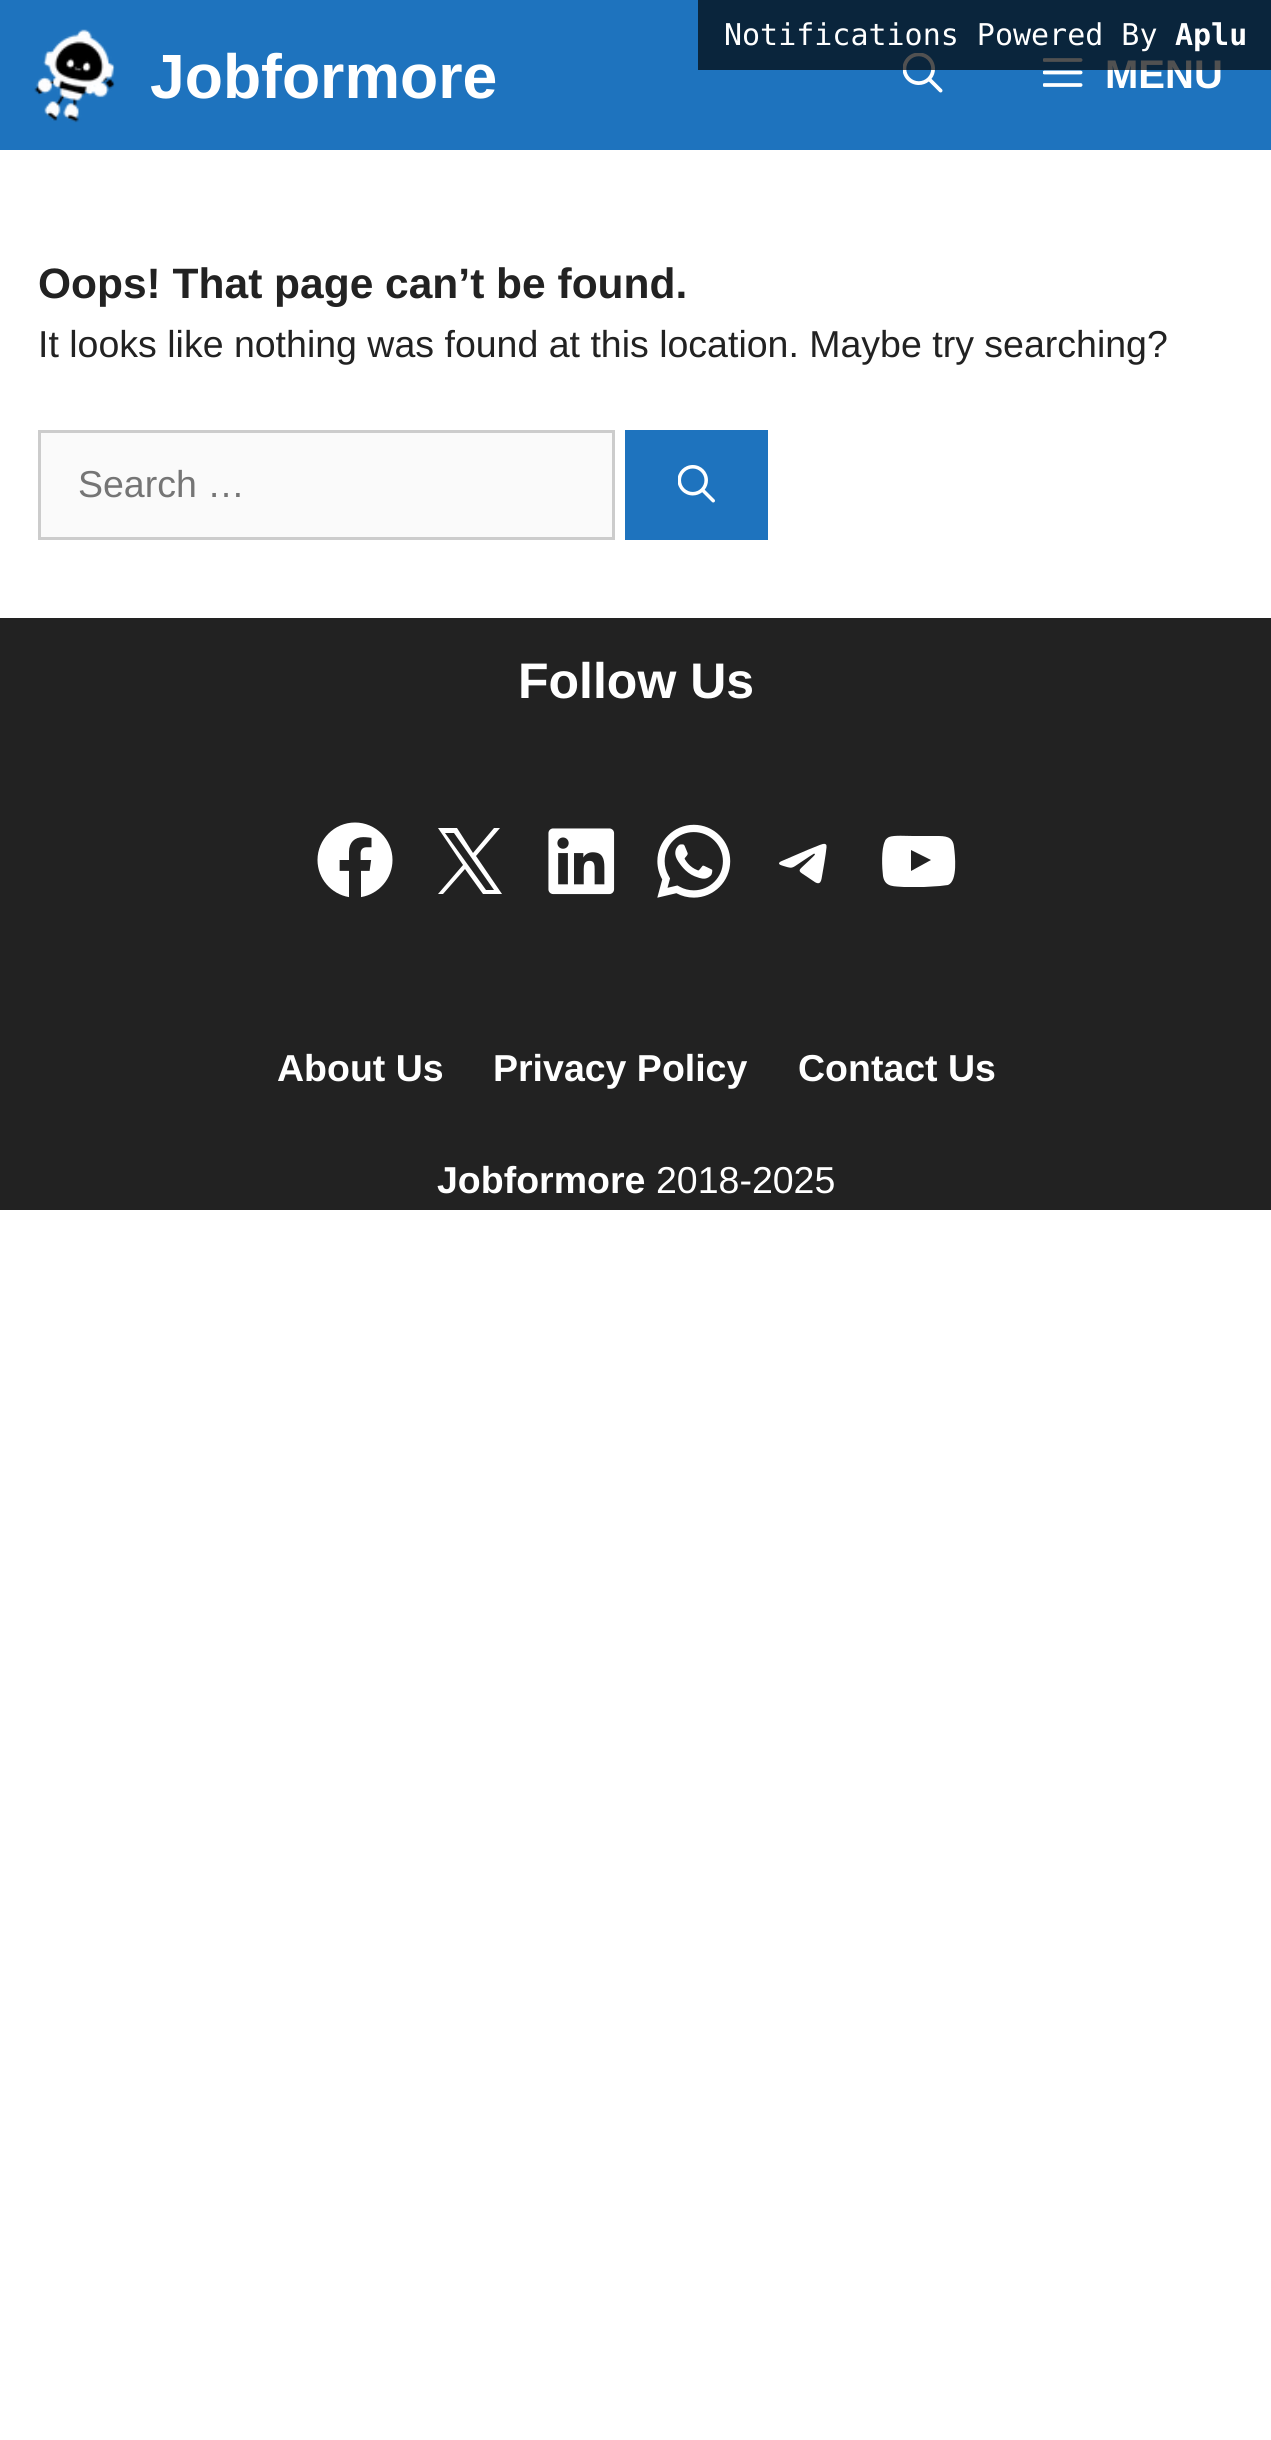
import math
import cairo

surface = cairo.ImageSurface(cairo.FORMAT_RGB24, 1271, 2440)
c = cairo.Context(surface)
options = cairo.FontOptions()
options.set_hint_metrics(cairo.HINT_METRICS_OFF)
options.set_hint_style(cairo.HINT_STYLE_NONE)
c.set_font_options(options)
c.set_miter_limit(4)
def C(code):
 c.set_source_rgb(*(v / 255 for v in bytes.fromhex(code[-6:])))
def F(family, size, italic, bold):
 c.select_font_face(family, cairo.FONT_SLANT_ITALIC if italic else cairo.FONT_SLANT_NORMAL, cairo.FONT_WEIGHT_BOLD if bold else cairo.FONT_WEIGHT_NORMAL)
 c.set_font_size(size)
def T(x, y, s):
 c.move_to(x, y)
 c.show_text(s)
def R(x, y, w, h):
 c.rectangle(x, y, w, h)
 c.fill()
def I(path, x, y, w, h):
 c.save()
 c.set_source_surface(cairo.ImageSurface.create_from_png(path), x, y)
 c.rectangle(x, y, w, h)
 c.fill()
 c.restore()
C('ffffff')
c.paint()
C('1e73be')
R(0,0,1271,150)
I('2.png',903,53,40,40)
I('3.png',1043,58,40,29)
F('Liberation Sans',40,0,1)
C('ffffff')
T(1105,88,'MENU')
c.set_source_rgba(0,0,0,0.68)
R(698,0,573,70)
F('DejaVu Sans Mono',30,0,0)
C('ffffff')
T(724,45,'Notifications Powered By')
F('DejaVu Sans Mono',30,0,1)
T(1175,45,'Aplu')
I('1.png',34,29,81,94)
F('Liberation Sans',62.5,0,1)
T(150,98,'Jobformore')
F('Liberation Sans',42.5,0,1)
C('222222')
T(38,298,'Oops! That page can’t be found.')
F('Liberation Sans',37.5,0,0)
T(38,357,'It looks like nothing was found at this location. Maybe try searching?')
C('fafafa')
c.rectangle(39.5,431.5,574,107)
c.fill_preserve()
C('cccccc')
c.set_line_width(3)
c.stroke()
C('757575')
T(78,497,'Search …')
C('1e73be')
R(625,430,143,110)
I('4.png',678,465,37,38)
C('222222')
R(0,618,1271,592)
F('Liberation Sans',50,0,1)
C('ffffff')
T(518,698,'Follow Us')
I('5.png',317,822,76,76)
c.new_path()
c.move_to(476,856)
c.line_to(500,828)
c.line_to(494,828)
c.line_to(473,853)
c.line_to(457,828)
c.line_to(438,828)
c.line_to(463,865)
c.line_to(438,894)
c.line_to(443,894)
c.line_to(465,869)
c.line_to(483,894)
c.line_to(502,894)
c.close_path()
c.move_to(468,865)
c.line_to(445,833)
c.line_to(454,833)
c.line_to(494,890)
c.line_to(486,890)
c.close_path()
c.fill()
I('6.png',548,828,67,67)
I('7.png',657,824,74,74)
I('8.png',779,843,48,41)
c.new_path()
c.move_to(954,847)
c.curve_to(953,836,945,836,936,836)
c.line_to(913,836)
c.curve_to(907,836,894,835,889,837)
c.curve_to(887,838,885,840,885,841)
c.curve_to(881,849,882,868,883,876)
c.curve_to(885,888,895,886,904,887)
c.line_to(924,887)
c.line_to(940,886)
c.line_to(948,885)
c.curve_to(958,881,955,855,954,847)
c.close_path()
c.move_to(911,871)
c.line_to(911,850)
c.line_to(931,860)
c.close_path()
c.fill()
F('Liberation Sans',37.5,0,1)
T(277,1081,'About Us')
T(493,1081,'Privacy Policy')
T(798,1081,'Contact Us')
T(437,1193,'Jobformore')
F('Liberation Sans',37.5,0,0)
T(656,1193,'2018-2025')
surface.write_to_png('o.png')
